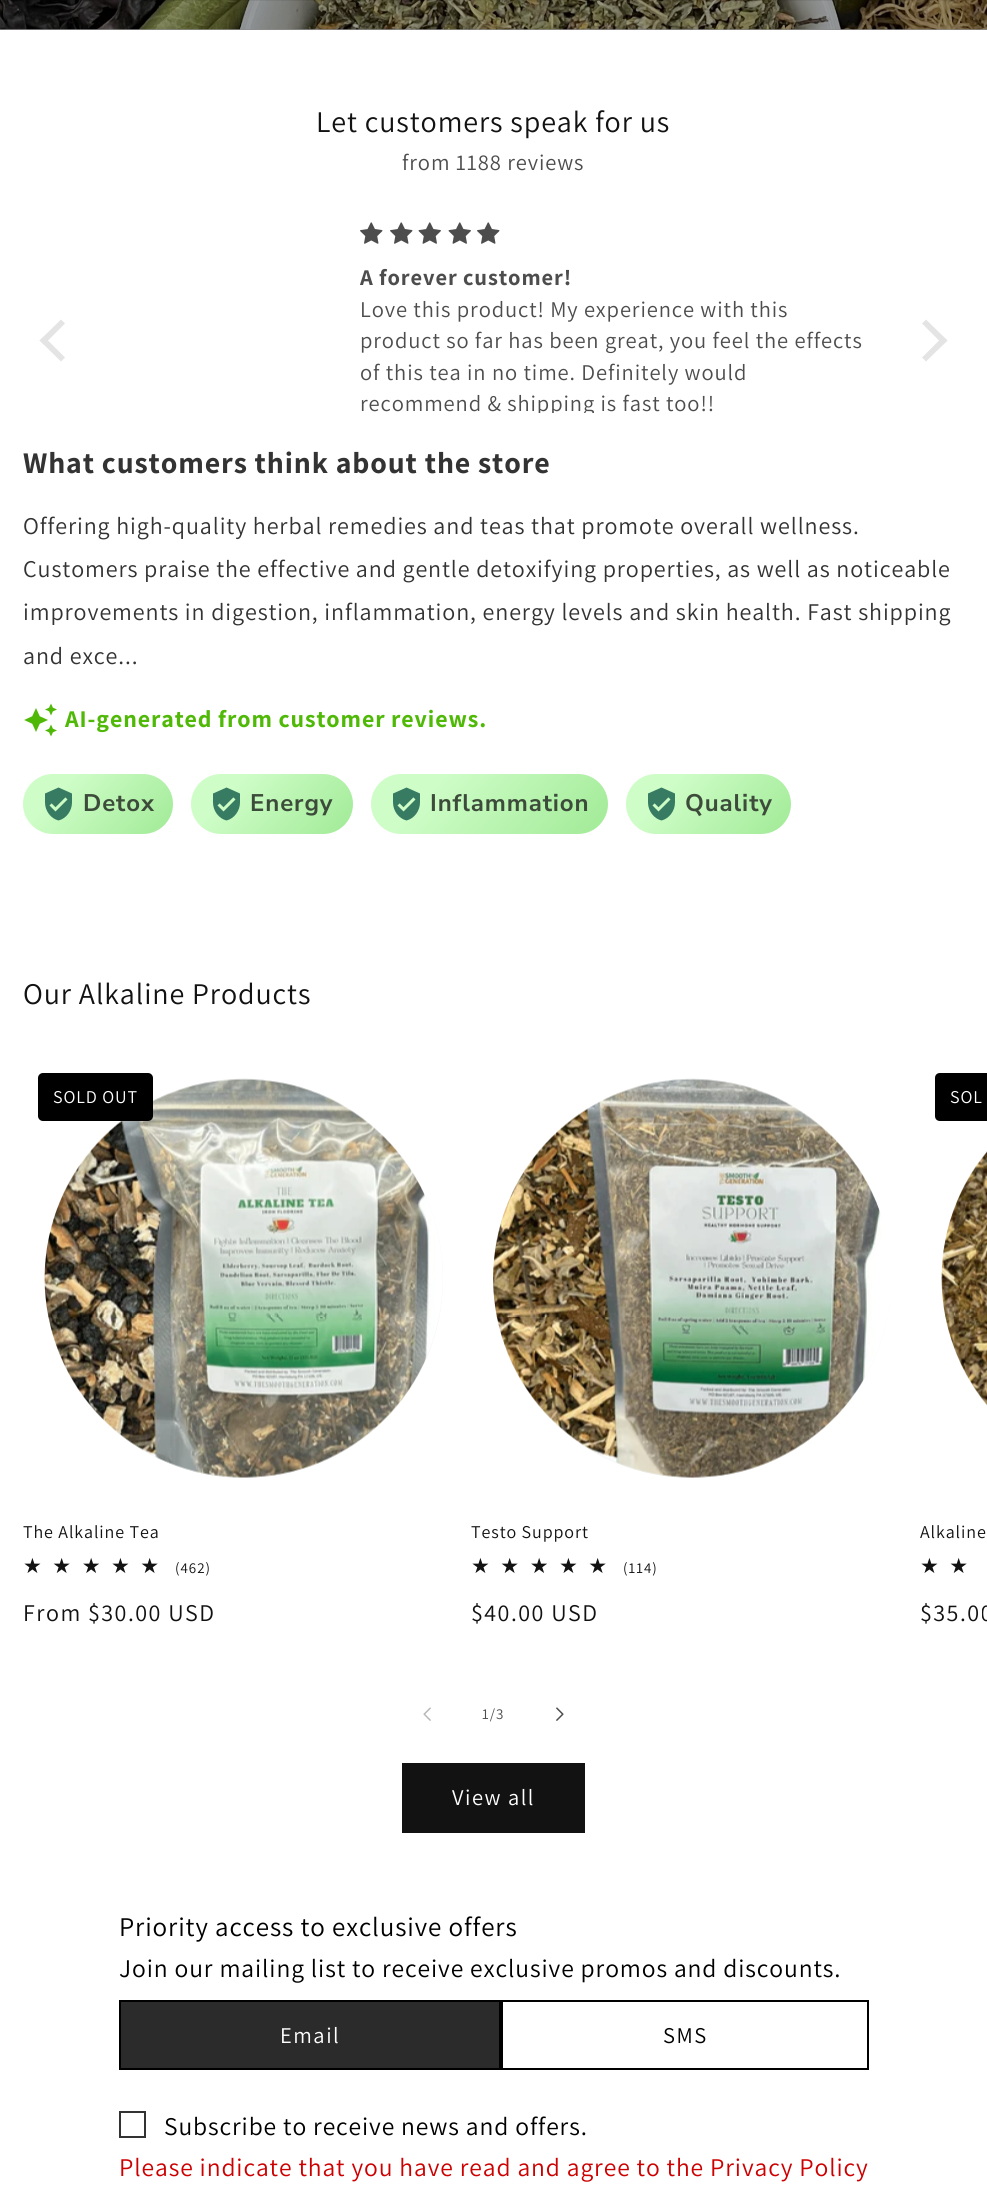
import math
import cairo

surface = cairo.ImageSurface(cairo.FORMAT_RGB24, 987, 2209)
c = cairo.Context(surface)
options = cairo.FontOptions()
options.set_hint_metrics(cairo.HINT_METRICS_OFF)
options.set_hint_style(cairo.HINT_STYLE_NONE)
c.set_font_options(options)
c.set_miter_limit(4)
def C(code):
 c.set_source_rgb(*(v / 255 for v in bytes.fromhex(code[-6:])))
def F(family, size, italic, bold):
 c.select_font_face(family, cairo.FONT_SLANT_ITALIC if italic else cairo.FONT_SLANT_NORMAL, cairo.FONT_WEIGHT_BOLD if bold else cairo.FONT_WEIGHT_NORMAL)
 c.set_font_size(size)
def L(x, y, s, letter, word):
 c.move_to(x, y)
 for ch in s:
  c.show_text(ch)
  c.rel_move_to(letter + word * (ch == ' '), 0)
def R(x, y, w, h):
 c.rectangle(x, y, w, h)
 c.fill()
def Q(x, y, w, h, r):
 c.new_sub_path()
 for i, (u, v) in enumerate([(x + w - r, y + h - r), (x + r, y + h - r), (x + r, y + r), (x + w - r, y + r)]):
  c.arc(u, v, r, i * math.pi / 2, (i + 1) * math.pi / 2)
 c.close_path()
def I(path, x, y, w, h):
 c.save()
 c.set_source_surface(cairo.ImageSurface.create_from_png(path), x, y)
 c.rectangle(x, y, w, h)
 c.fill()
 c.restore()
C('ffffff')
c.paint()
C('8b8b8b')
R(0,29,987,1)
I('1.png',0,0,987,30)
c.set_source_rgba(0.071,0.071,0.071,0.08)
R(9,0,978,1)
F('Assistant',30,0,0)
C('121212')
L(316,132,'Let customers speak for us',.9,0)
F('Assistant',22.5,0,0)
C('4d4d4d')
L(402,170,'from 1188 reviews',.9,0)
I('2.png',360,222,23,22)
I('2.png',390,222,23,22)
I('3.png',418,222,23,22)
I('3.png',448,222,23,22)
I('2.png',477,222,23,22)
F('Assistant',22.5,0,1)
L(360,285,'A forever customer!',.9,0)
F('Assistant',22.5,0,0)
L(360,317,'Love this product! My experience with this',.9,0)
L(360,348,'product so far has been great, you feel the effects',.9,0)
L(360,380,'of this tea in no time. Definitely would',.9,0)
c.save()
c.rectangle(360,218,513,195)
c.clip()
L(360,411,'recommend & shipping is fast too!!',.9,0)
c.restore()
C('e4e4e4')
c.new_path()
c.move_to(39.5,340.5)
c.line_to(61,319.5)
c.line_to(65,323.5)
c.line_to(44,344.5)
c.close_path()
c.fill()
c.new_path()
c.move_to(39.5,340.5)
c.line_to(44,336.5)
c.line_to(65,357.5)
c.line_to(61,361.5)
c.close_path()
c.fill()
c.new_path()
c.move_to(922,323.5)
c.line_to(926,319.5)
c.line_to(947.5,340.5)
c.line_to(943,344.5)
c.close_path()
c.fill()
c.new_path()
c.move_to(922,357.5)
c.line_to(943,336.5)
c.line_to(947.5,340.5)
c.line_to(926,361.5)
c.close_path()
c.fill()
F('Assistant',30,0,1)
C('333333')
L(23,473,'What customers think about the store',.9,0)
F('Assistant',24,0,0)
L(23,534,'Offering high-quality herbal remedies and teas that promote overall wellness.',.9,0)
L(23,577,'Customers praise the effective and gentle detoxifying properties, as well as noticeable',.9,0)
L(23,620,'improvements in digestion, inflammation, energy levels and skin health. Fast shipping',.9,0)
L(23,664,'and exce...',.9,0)
I('4.png',24,703,33,34)
F('Assistant',24,0,1)
C('50b908')
L(65,727,'AI-generated from customer reviews.',.9,0)
gradient = cairo.LinearGradient(43,752,152,856)
gradient.add_color_stop_rgba(.26,0.808,0.992,0.78,1)
gradient.add_color_stop_rgba(.93,0.647,0.925,0.608,1)
c.set_source(gradient)
Q(23,774,150,60,30)
c.fill()
I('5.png',45,787,27,34)
F('Nunito Sans',24,0,1)
C('3c4b3a')
L(83,811,'Detox',.9,0)
gradient = cairo.LinearGradient(214,749,329,859)
gradient.add_color_stop_rgba(.26,0.808,0.992,0.78,1)
gradient.add_color_stop_rgba(.93,0.647,0.925,0.608,1)
c.set_source(gradient)
Q(191,774,162,60,30)
c.fill()
I('6.png',213,787,27,34)
C('3c4b3a')
L(250,811,'Energy',.9,0)
gradient = cairo.LinearGradient(411,731,567,877)
gradient.add_color_stop_rgba(.26,0.808,0.992,0.78,1)
gradient.add_color_stop_rgba(.93,0.647,0.925,0.608,1)
c.set_source(gradient)
Q(371,774,237,60,30)
c.fill()
I('7.png',393,787,27,34)
C('3c4b3a')
L(430,811,'Inflammation',.9,0)
gradient = cairo.LinearGradient(649,749,767,859)
gradient.add_color_stop_rgba(.26,0.808,0.992,0.78,1)
gradient.add_color_stop_rgba(.93,0.647,0.925,0.608,1)
c.set_source(gradient)
Q(626,774,165,60,30)
c.fill()
I('8.png',648,787,27,34)
C('3c4b3a')
L(685,811,'Quality',.9,0)
F('Assistant',30,0,0)
C('121212')
L(23,1004,'Our Alkaline Products',.9,0)
C('f3f3f3')
c.new_path()
c.move_to(244,1080)
c.curve_to(134,1080,45,1169,45,1279)
c.curve_to(45,1389,134,1478,244,1478)
c.curve_to(354,1478,443,1389,443,1279)
c.curve_to(443,1169,354,1080,244,1080)
c.close_path()
c.fill()
I('9.png',44,1078,399,400)
C('000000')
Q(38,1073,115,48,5)
c.fill()
F('Assistant',18,0,0)
C('ffffff')
L(53,1103,'SOLD OUT',.9,0)
C('121212')
L(23,1538,'The Alkaline Tea',.9,0)
F('DejaVu Sans',21,0,0)
gradient = cairo.LinearGradient(23,1566,169,1566)
gradient.add_color_stop_rgba(.93,0.071,0.071,0.071,1)
gradient.add_color_stop_rgba(.93,0.859,0.859,0.859,1)
c.set_source(gradient)
L(23,1573,'★★★★★',10.5,0)
F('Assistant',15,0,0)
C('121212')
L(175,1573,'(462)',1,0)
F('Assistant',24,0,0)
L(23,1621,'From $30.00 USD',1.5,0)
C('f3f3f3')
c.new_path()
c.move_to(692,1080)
c.curve_to(582,1080,493,1169,493,1279)
c.curve_to(493,1389,582,1478,692,1478)
c.curve_to(802,1478,891,1389,891,1279)
c.curve_to(891,1169,802,1080,692,1080)
c.close_path()
c.fill()
I('10.png',493,1078,398,400)
F('Assistant',18,0,0)
C('121212')
L(471,1538,'Testo Support',.9,0)
F('DejaVu Sans',21,0,0)
gradient = cairo.LinearGradient(471,1566,618,1566)
gradient.add_color_stop_rgba(.93,0.071,0.071,0.071,1)
gradient.add_color_stop_rgba(.93,0.859,0.859,0.859,1)
c.set_source(gradient)
L(471,1573,'★★★★★',10.5,0)
F('Assistant',15,0,0)
C('121212')
L(623,1573,'(114)',1,0)
F('Assistant',24,0,0)
L(471,1621,'$40.00 USD',1.5,0)
C('000000')
c.new_path()
c.move_to(940,1073)
c.line_to(987,1073)
c.line_to(987,1121)
c.line_to(940,1121)
c.curve_to(937,1121,935,1119,935,1116)
c.line_to(935,1078)
c.curve_to(935,1075,937,1073,940,1073)
c.close_path()
c.fill()
F('Assistant',18,0,0)
C('ffffff')
L(950,1103,'SOL',.9,0)
C('f3f3f3')
c.new_path()
c.move_to(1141,1080)
c.curve_to(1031,1080,942,1169,942,1279)
c.curve_to(942,1389,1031,1478,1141,1478)
c.curve_to(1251,1478,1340,1389,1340,1279)
c.curve_to(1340,1169,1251,1080,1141,1080)
c.close_path()
c.fill()
I('11.png',941,1151,46,255)
C('121212')
L(920,1538,'Alkaline',.9,0)
F('DejaVu Sans',21,0,0)
gradient = cairo.LinearGradient(920,1566,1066,1566)
gradient.add_color_stop_rgba(.93,0.071,0.071,0.071,1)
gradient.add_color_stop_rgba(.93,0.859,0.859,0.859,1)
c.set_source(gradient)
L(920,1573,'★★',10.5,0)
F('Assistant',24,0,0)
C('121212')
L(920,1621,'$35.00',1.5,0)
I('12.png',423,1707,8,14)
F('Assistant',15,0,0)
C('4d4d4d')
L(482,1719,'1/3',1,0)
I('13.png',556,1707,8,14)
C('121212')
R(402,1763,183,70)
F('Assistant',22.5,0,0)
C('ffffff')
L(452,1805,'View all',1.5,0)
F('Assistant',27,0,0)
C('000000')
L(119,1936,'Priority access to exclusive offers',.9,0)
F('Assistant',25.5,0,0)
L(119,1977,'Join our mailing list to receive exclusive promos and discounts.',.9,0)
C('2b2b2b')
c.rectangle(120,2001,380,68)
c.fill_preserve()
C('000000')
c.stroke()
F('Assistant',22.5,0,0)
C('ffffff')
L(280,2043,'Email',1.5,0)
c.rectangle(502,2001,366,68)
C('000000')
c.stroke()
L(663,2043,'SMS',1.5,0)
c.rectangle(120,2112,25,25)
C('333333')
c.stroke()
F('Assistant',25.5,0,0)
C('000000')
L(164,2135,'Subscribe to receive news and offers.',.9,0)
C('cc0000')
L(119,2176,'Please indicate that you have read and agree to the Privacy Policy',.9,0)
surface.write_to_png('o.png')
